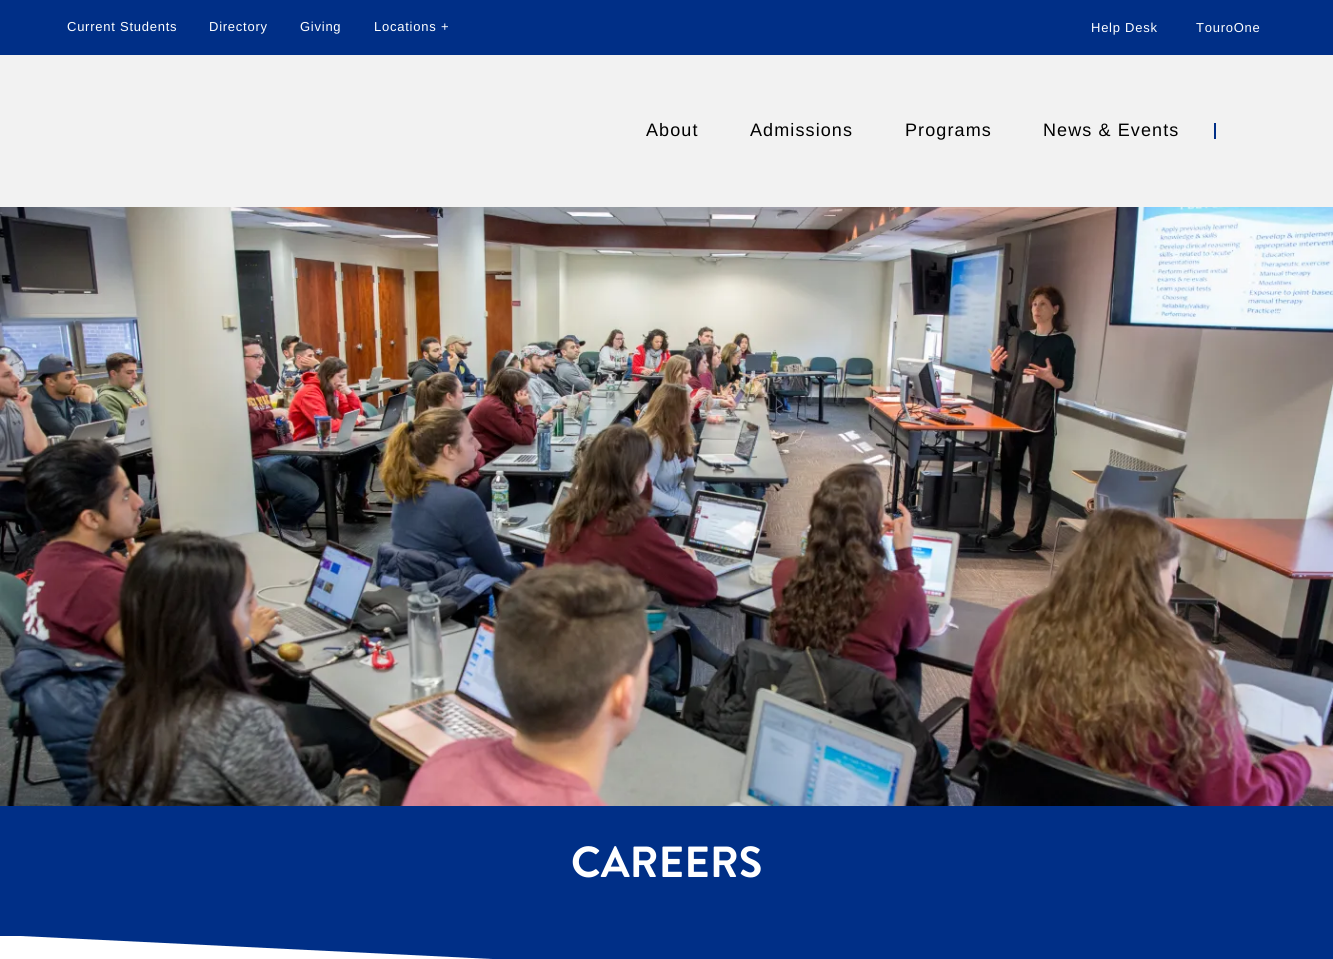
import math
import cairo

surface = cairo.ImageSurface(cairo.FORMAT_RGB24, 1333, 959)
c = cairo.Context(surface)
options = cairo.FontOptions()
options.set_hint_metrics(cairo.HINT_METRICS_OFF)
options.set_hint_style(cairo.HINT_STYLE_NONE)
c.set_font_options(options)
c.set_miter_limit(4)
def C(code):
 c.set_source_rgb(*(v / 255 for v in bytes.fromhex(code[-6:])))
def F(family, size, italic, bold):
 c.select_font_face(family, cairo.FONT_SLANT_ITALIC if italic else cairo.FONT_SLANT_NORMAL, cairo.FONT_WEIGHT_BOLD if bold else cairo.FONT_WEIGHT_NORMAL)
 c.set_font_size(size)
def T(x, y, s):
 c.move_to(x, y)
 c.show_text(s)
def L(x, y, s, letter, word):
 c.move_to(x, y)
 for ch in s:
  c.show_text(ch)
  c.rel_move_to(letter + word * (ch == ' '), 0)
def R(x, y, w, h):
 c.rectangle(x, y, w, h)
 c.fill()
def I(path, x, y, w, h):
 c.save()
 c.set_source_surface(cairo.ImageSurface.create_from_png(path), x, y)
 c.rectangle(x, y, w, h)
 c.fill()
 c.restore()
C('ffffff')
c.paint()
C('002f87')
R(0,0,1333,55)
F('Liberation Sans',13,0,0)
C('ffffff')
L(67,31,'Current Students',.75,0)
L(209,31,'Directory',.75,0)
L(300,31,'Giving',.75,0)
L(374,31,'Locations',.75,0)
L(441,31,'+',.75,0)
L(1091,32,'Help Desk',.75,0)
L(1196,32,'TouroOne',.75,0)
C('f2f2f2')
R(0,55,1333,152)
F('Liberation Sans',18,0,0)
C('000000')
L(646,136,'About',1.1,0)
L(750,136,'Admissions',1.1,0)
L(905,136,'Programs',1.1,0)
L(1043,136,'News & Events',1.1,0)
C('002f87')
R(1214,123,2,16)
I('1.png',0,207,1333,599)
R(0,806,1333,130)
F('Brandon Grotesque',43.5,0,1)
C('ffffff')
T(571,877,'CAREERS')
C('002f87')
c.new_path()
c.move_to(0,935)
c.line_to(1333,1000)
c.line_to(1333,935)
c.close_path()
c.fill()
surface.write_to_png('o.png')
